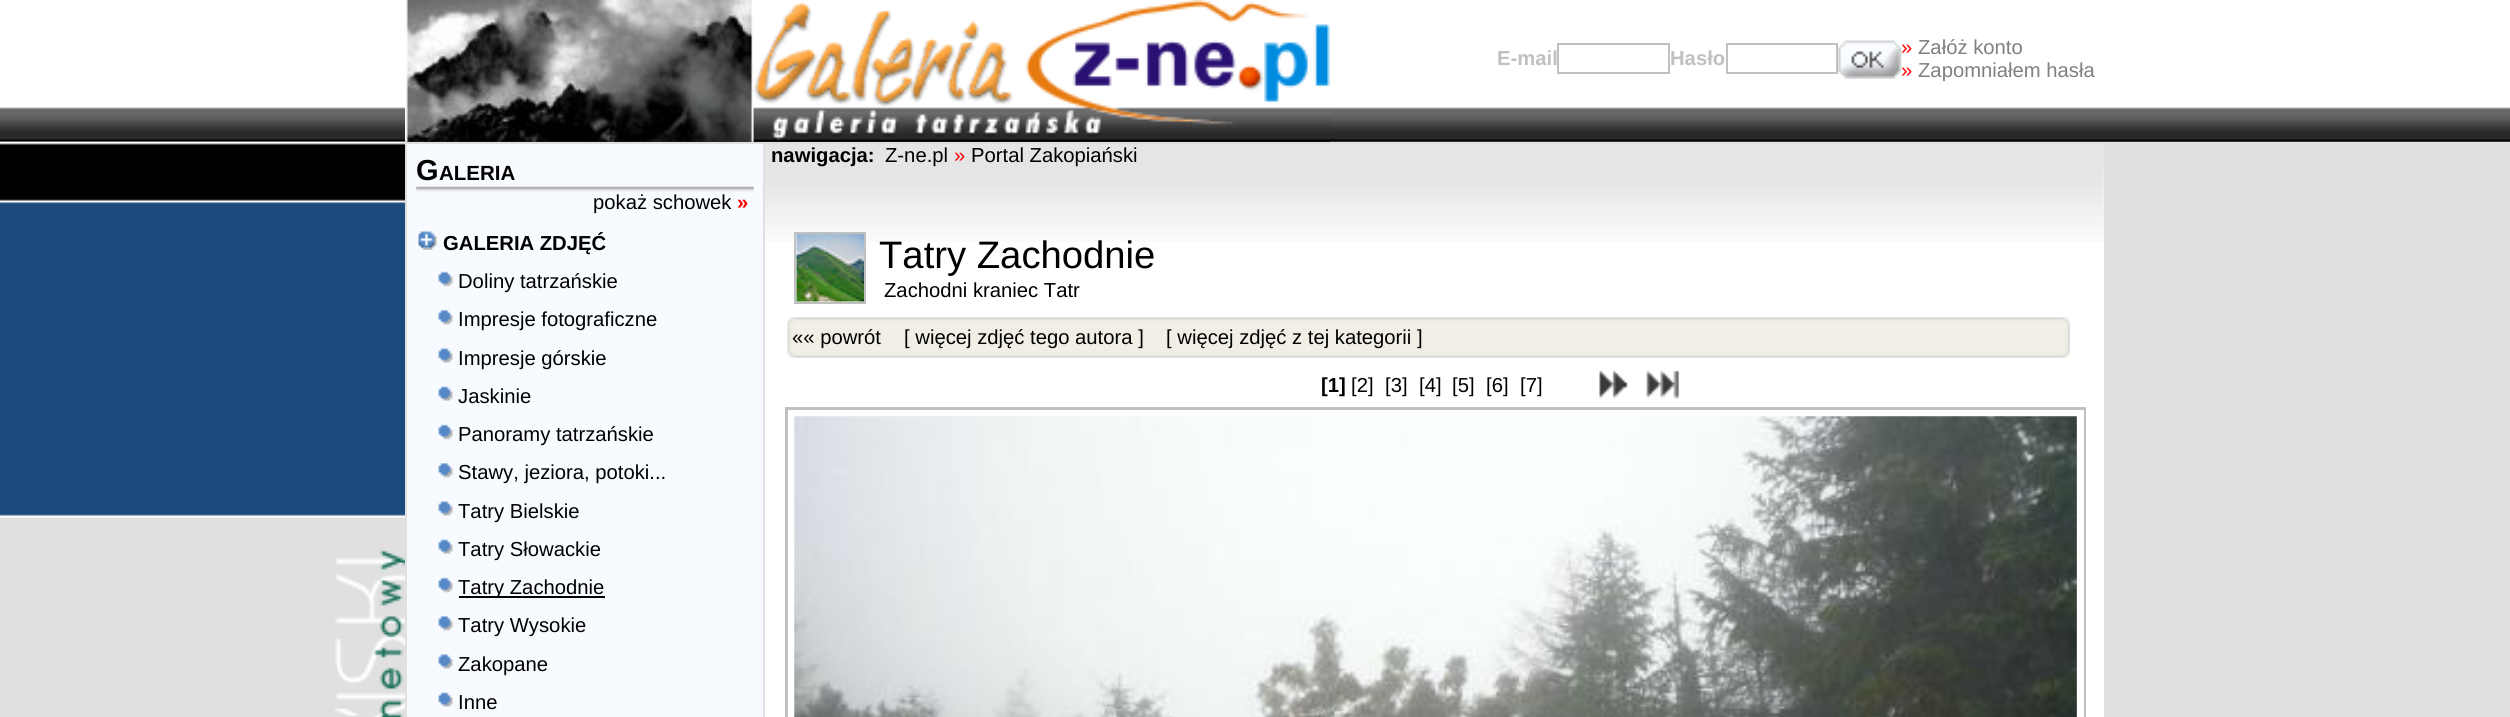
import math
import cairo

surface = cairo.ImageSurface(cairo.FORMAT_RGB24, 2510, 717)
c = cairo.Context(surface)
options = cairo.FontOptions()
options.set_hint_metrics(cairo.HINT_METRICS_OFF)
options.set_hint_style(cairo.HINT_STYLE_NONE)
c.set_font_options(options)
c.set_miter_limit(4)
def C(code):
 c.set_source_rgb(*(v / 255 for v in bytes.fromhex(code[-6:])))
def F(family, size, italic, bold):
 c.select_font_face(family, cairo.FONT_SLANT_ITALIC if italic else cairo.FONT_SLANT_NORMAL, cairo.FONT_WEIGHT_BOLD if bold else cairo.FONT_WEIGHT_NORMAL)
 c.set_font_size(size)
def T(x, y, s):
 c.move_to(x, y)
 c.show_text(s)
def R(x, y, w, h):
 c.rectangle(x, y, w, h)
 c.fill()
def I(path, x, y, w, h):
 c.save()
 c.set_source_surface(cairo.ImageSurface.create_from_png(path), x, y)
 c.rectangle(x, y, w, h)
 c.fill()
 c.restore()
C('e0e0e0')
c.paint()
I('1.png',0,0,2510,142)
I('2.png',405,0,349,142)
I('3.png',753,0,577,142)
F('Liberation Sans',20.25,0,1)
C('c0c0c0')
T(1497,65,'E-mail')
c.rectangle(1558,44,111,29)
c.stroke()
T(1670,65,'Hasło')
c.rectangle(1727,44,110,29)
c.stroke()
I('4.png',1838,40,64,39)
F('Liberation Sans',20.25,0,0)
C('ff0000')
T(1901,54,'»')
C('808080')
T(1918,54,'Załóż konto')
C('ff0000')
T(1901,77,'»')
C('808080')
T(1918,77,'Zapomniałem hasła')
I('5.png',0,141,405,377)
I('6.png',334,549,71,168)
C('f7faff')
R(407,144,356,573)
F('Liberation Sans',29,0,1)
C('000000')
T(416,180,'G')
F('Liberation Sans',20.5,0,1)
T(439,180,'ALERIA')
I('7.png',416,186,338,6)
F('Liberation Sans',20.25,0,0)
T(593,209,'pokaż schowek')
F('Liberation Sans',20.25,0,1)
C('ff0000')
T(737,209,'»')
I('8.png',418,231,19,19)
C('000000')
T(443,250,'GALERIA ZDJĘĆ')
I('9.png',438,271,15,16)
F('Liberation Sans',20.25,0,0)
T(458,288,'Doliny tatrzańskie')
I('10.png',438,310,15,15)
T(458,326,'Impresje fotograficzne')
I('11.png',438,348,15,15)
T(458,365,'Impresje górskie')
I('12.png',438,386,15,15)
T(458,403,'Jaskinie')
I('9.png',438,424,15,16)
T(458,441,'Panoramy tatrzańskie')
I('10.png',438,463,15,15)
T(458,479,'Stawy, jeziora, potoki...')
I('11.png',438,501,15,15)
T(458,518,'Tatry Bielskie')
I('12.png',438,539,15,15)
T(458,556,'Tatry Słowackie')
I('13.png',438,577,15,16)
R(459,596,146,2)
T(458,594,'Tatry Zachodnie')
I('10.png',438,616,15,15)
T(458,632,'Tatry Wysokie')
I('11.png',438,654,15,15)
T(458,671,'Zakopane')
I('12.png',438,692,15,15)
T(458,709,'Inne')
C('ffffff')
R(765,167,1339,550)
C('e5e5e5')
R(765,144,1339,23)
F('Liberation Sans',20.25,0,1)
C('000000')
T(771,162,'nawigacja:')
F('Liberation Sans',20.25,0,0)
T(885,162,'Z-ne.pl')
C('ff0000')
T(954,162,'»')
C('000000')
T(971,162,'Portal Zakopiański')
I('14.png',765,167,1339,75)
c.rectangle(795,233,70,70)
C('c0c0c0')
c.stroke()
I('15.png',796,234,68,68)
F('Liberation Sans',38.25,0,0)
C('000000')
T(879,268,'Tatry Zachodnie')
F('Liberation Sans',20.25,0,0)
T(884,297,'Zachodni kraniec Tatr')
I('16.png',787,317,1283,9)
I('17.png',787,326,1283,23)
T(792,344,'«« powrót')
T(904,344,'[ więcej zdjęć tego autora ]')
T(1166,344,'[ więcej zdjęć z tej kategorii ]')
I('18.png',787,348,1283,10)
F('Liberation Sans',20.25,0,1)
T(1321,392,'[1]')
F('Liberation Sans',20.25,0,0)
T(1351,392,'[2]')
T(1385,392,'[3]')
T(1419,392,'[4]')
T(1452,392,'[5]')
T(1486,392,'[6]')
T(1520,392,'[7]')
I('19.png',1599,370,29,29)
I('20.png',1646,370,34,29)
C('c0c0c0')
R(785,407,1301,310)
c.rectangle(791.5,413.5,1289,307)
C('ffffff')
c.set_line_width(7)
c.stroke()
I('21.png',794,416,1283,301)
surface.write_to_png('o.png')
